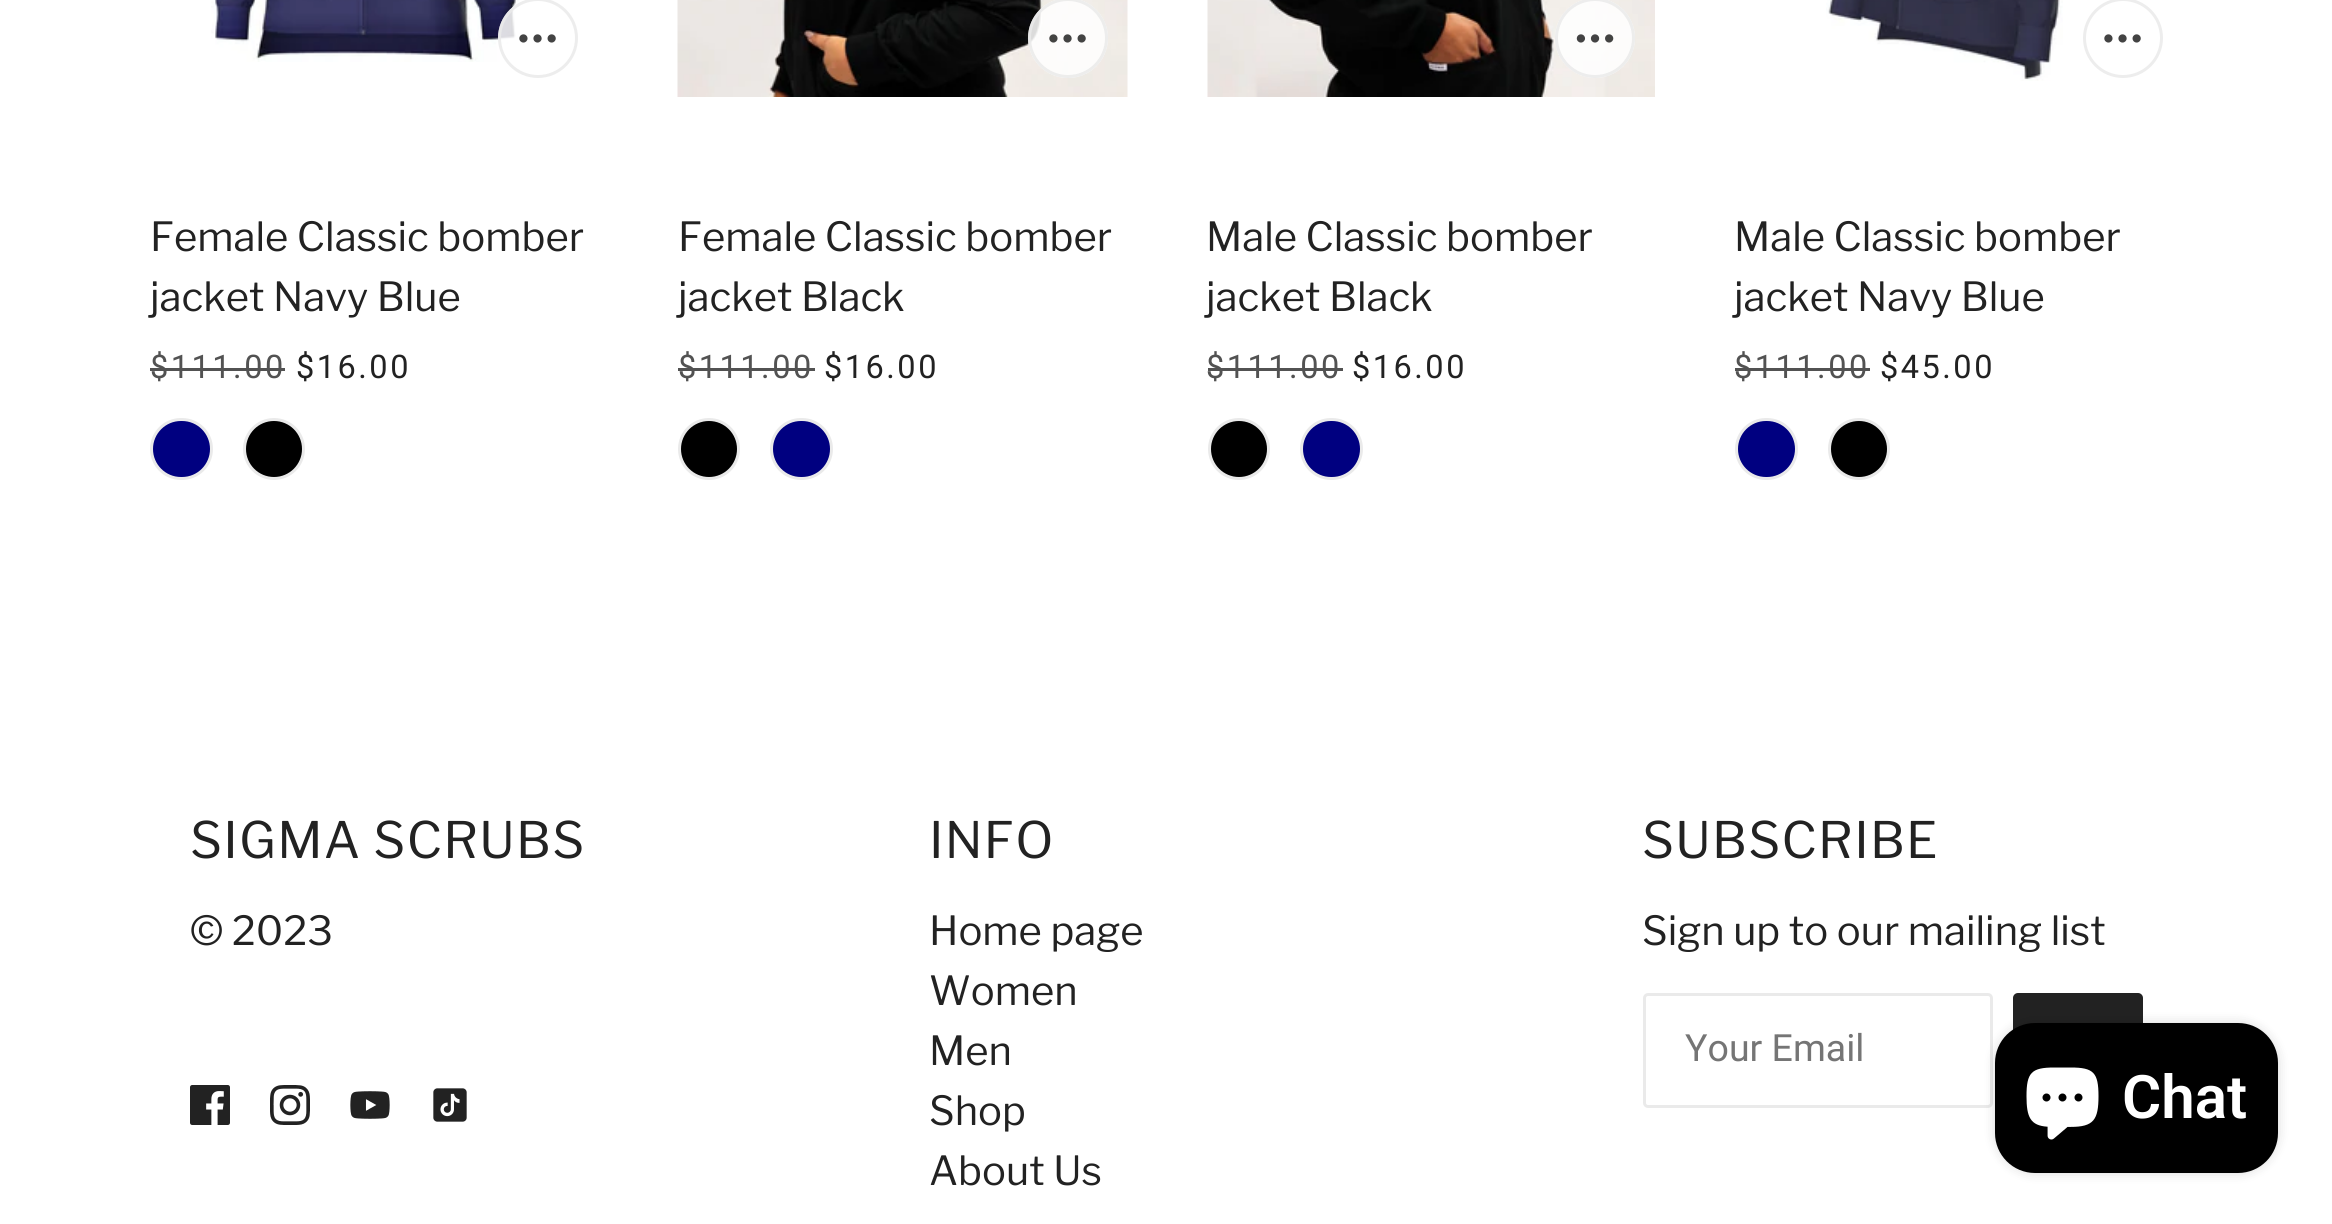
import math
import cairo

surface = cairo.ImageSurface(cairo.FORMAT_RGB24, 2332, 1224)
c = cairo.Context(surface)
options = cairo.FontOptions()
options.set_hint_metrics(cairo.HINT_METRICS_OFF)
options.set_hint_style(cairo.HINT_STYLE_NONE)
c.set_font_options(options)
c.set_miter_limit(4)
def C(code):
 c.set_source_rgb(*(v / 255 for v in bytes.fromhex(code[-6:])))
def F(family, size, italic, bold):
 c.select_font_face(family, cairo.FONT_SLANT_ITALIC if italic else cairo.FONT_SLANT_NORMAL, cairo.FONT_WEIGHT_BOLD if bold else cairo.FONT_WEIGHT_NORMAL)
 c.set_font_size(size)
def T(x, y, s):
 c.move_to(x, y)
 c.show_text(s)
def L(x, y, s, letter, word):
 c.move_to(x, y)
 for ch in s:
  c.show_text(ch)
  c.rel_move_to(letter + word * (ch == ' '), 0)
def R(x, y, w, h):
 c.rectangle(x, y, w, h)
 c.fill()
def Q(x, y, w, h, r):
 c.new_sub_path()
 for i, (u, v) in enumerate([(x + w - r, y + h - r), (x + r, y + h - r), (x + r, y + r), (x + w - r, y + r)]):
  c.arc(u, v, r, i * math.pi / 2, (i + 1) * math.pi / 2)
 c.close_path()
def S(x, y, w, h, r, blur, alpha):
 c.push_group_with_content(cairo.CONTENT_ALPHA)
 c.set_operator(cairo.OPERATOR_SOURCE)
 for i in range(15, -16, -2):
  e = blur * i / 6
  if min(w, h) + 2 * e > 0:
   c.set_source_rgba(0, 0, 0, alpha * math.erfc((i - 1) / 8.5) / 2)
   Q(x - e, y - e, w + 2 * e, h + 2 * e, max(0, min(r + e + blur * .6, min(w, h) / 2 + e)))
   c.fill()
 c.mask(c.pop_group())
def I(path, x, y, w, h):
 c.save()
 c.set_source_surface(cairo.ImageSurface.create_from_png(path), x, y)
 c.rectangle(x, y, w, h)
 c.fill()
 c.restore()
C('ffffff')
c.paint()
I('1.png',211,0,309,62)
c.set_source_rgba(1,1,1,0.85)
c.arc(538,38,40,0,2 * math.pi)
c.fill()
c.arc(538,38,38.5,0,2 * math.pi)
c.set_source_rgba(0.918,0.918,0.918,0.85)
c.set_line_width(3)
c.stroke()
I('2.png',519,34,37,9)
F('Libre Franklin',40,0,0)
C('222222')
T(150,251,'Female Classic bomber')
T(150,311,'jacket Navy Blue')
F('Roboto',32.5,0,0)
C('525252')
L(150,378,'$111.00',2.5,0)
R(150,368,135,3)
C('222222')
L(296,378,'$16.00',2.5,0)
C('000080')
Q(151.5,419.5,60,59,29.5)
c.fill_preserve()
C('eaeaea')
c.stroke()
C('000000')
c.arc(274,449,29.5,0,2 * math.pi)
c.fill_preserve()
C('eaeaea')
c.stroke()
I('4.png',677,0,451,97)
c.set_source_rgba(1,1,1,0.85)
c.arc(1068,38,40,0,2 * math.pi)
c.fill()
c.arc(1068,38,38.5,0,2 * math.pi)
c.set_source_rgba(0.918,0.918,0.918,0.85)
c.stroke()
I('3.png',1049,34,37,9)
F('Libre Franklin',40,0,0)
C('222222')
T(678,251,'Female Classic bomber')
T(678,311,'jacket Black')
F('Roboto',32.5,0,0)
C('525252')
L(678,378,'$111.00',2.5,0)
R(678,368,137,3)
C('222222')
L(824,378,'$16.00',2.5,0)
C('000000')
c.new_path()
c.arc(709,449,29.5,0,2 * math.pi)
c.fill_preserve()
C('eaeaea')
c.stroke()
C('000080')
Q(771.5,419.5,60,59,29.5)
c.fill_preserve()
C('eaeaea')
c.stroke()
I('6.png',1207,0,448,97)
c.set_source_rgba(1,1,1,0.85)
c.arc(1595,38,40,0,2 * math.pi)
c.fill()
c.arc(1595,38,38.5,0,2 * math.pi)
c.set_source_rgba(0.918,0.918,0.918,0.85)
c.stroke()
I('5.png',1576,34,38,9)
F('Libre Franklin',40,0,0)
C('222222')
T(1206,251,'Male Classic bomber')
T(1206,311,'jacket Black')
F('Roboto',32.5,0,0)
C('525252')
L(1206,378,'$111.00',2.5,0)
R(1208,368,135,3)
C('222222')
L(1352,378,'$16.00',2.5,0)
C('000000')
c.new_path()
c.arc(1239,449,29.5,0,2 * math.pi)
c.fill_preserve()
C('eaeaea')
c.stroke()
C('000080')
Q(1301.5,419.5,60,59,29.5)
c.fill_preserve()
C('eaeaea')
c.stroke()
I('7.png',1826,0,237,81)
c.arc(2123,38,38.5,0,2 * math.pi)
C('ededed')
c.stroke()
I('8.png',2104,34,37,9)
F('Libre Franklin',40,0,0)
C('222222')
T(1734,251,'Male Classic bomber')
T(1734,311,'jacket Navy Blue')
F('Roboto',32.5,0,0)
C('525252')
L(1734,378,'$111.00',2.5,0)
R(1735,368,135,3)
C('222222')
L(1880,378,'$45.00',2.5,0)
C('000080')
Q(1736.5,419.5,60,59,29.5)
c.fill_preserve()
C('eaeaea')
c.stroke()
C('000000')
c.arc(1859,449,29.5,0,2 * math.pi)
c.fill_preserve()
C('eaeaea')
c.stroke()
F('Libre Franklin',50,0,0)
C('222222')
L(190,858,'SIGMA SCRUBS',1.25,0)
F('Libre Franklin',40,0,0)
T(190,945,'© 2023')
I('9.png',190,1085,40,40)
I('10.png',270,1085,40,40)
I('11.png',350,1091,40,28)
I('12.png',433,1088,34,34)
F('Libre Franklin',50,0,0)
L(929,858,'INFO',1.25,0)
F('Libre Franklin',40,0,0)
T(929,945,'Home page')
T(929,1005,'Women')
T(929,1065,'Men')
T(929,1125,'Shop')
T(929,1185,'About Us')
F('Libre Franklin',50,0,0)
L(1642,858,'SUBSCRIBE',1.25,0)
F('Libre Franklin',40,0,0)
T(1642,945,'Sign up to our mailing list')
Q(1644.5,994.5,347,112,3.5)
C('eaeaea')
c.stroke()
F('Roboto',37.5,0,0)
C('757575')
T(1685,1061,'Your Email')
C('222222')
Q(2013,993,130,112,5)
c.fill()
C('000000')
S(1995,1023,283,150,40,6,.15)
C('000000')
Q(1995,1023,283,150,40)
c.fill()
I('13.png',2026,1067,73,73)
F('Roboto SemiBold',60,0,0)
C('ffffff')
T(2122,1118,'Chat')
surface.write_to_png('o.png')
